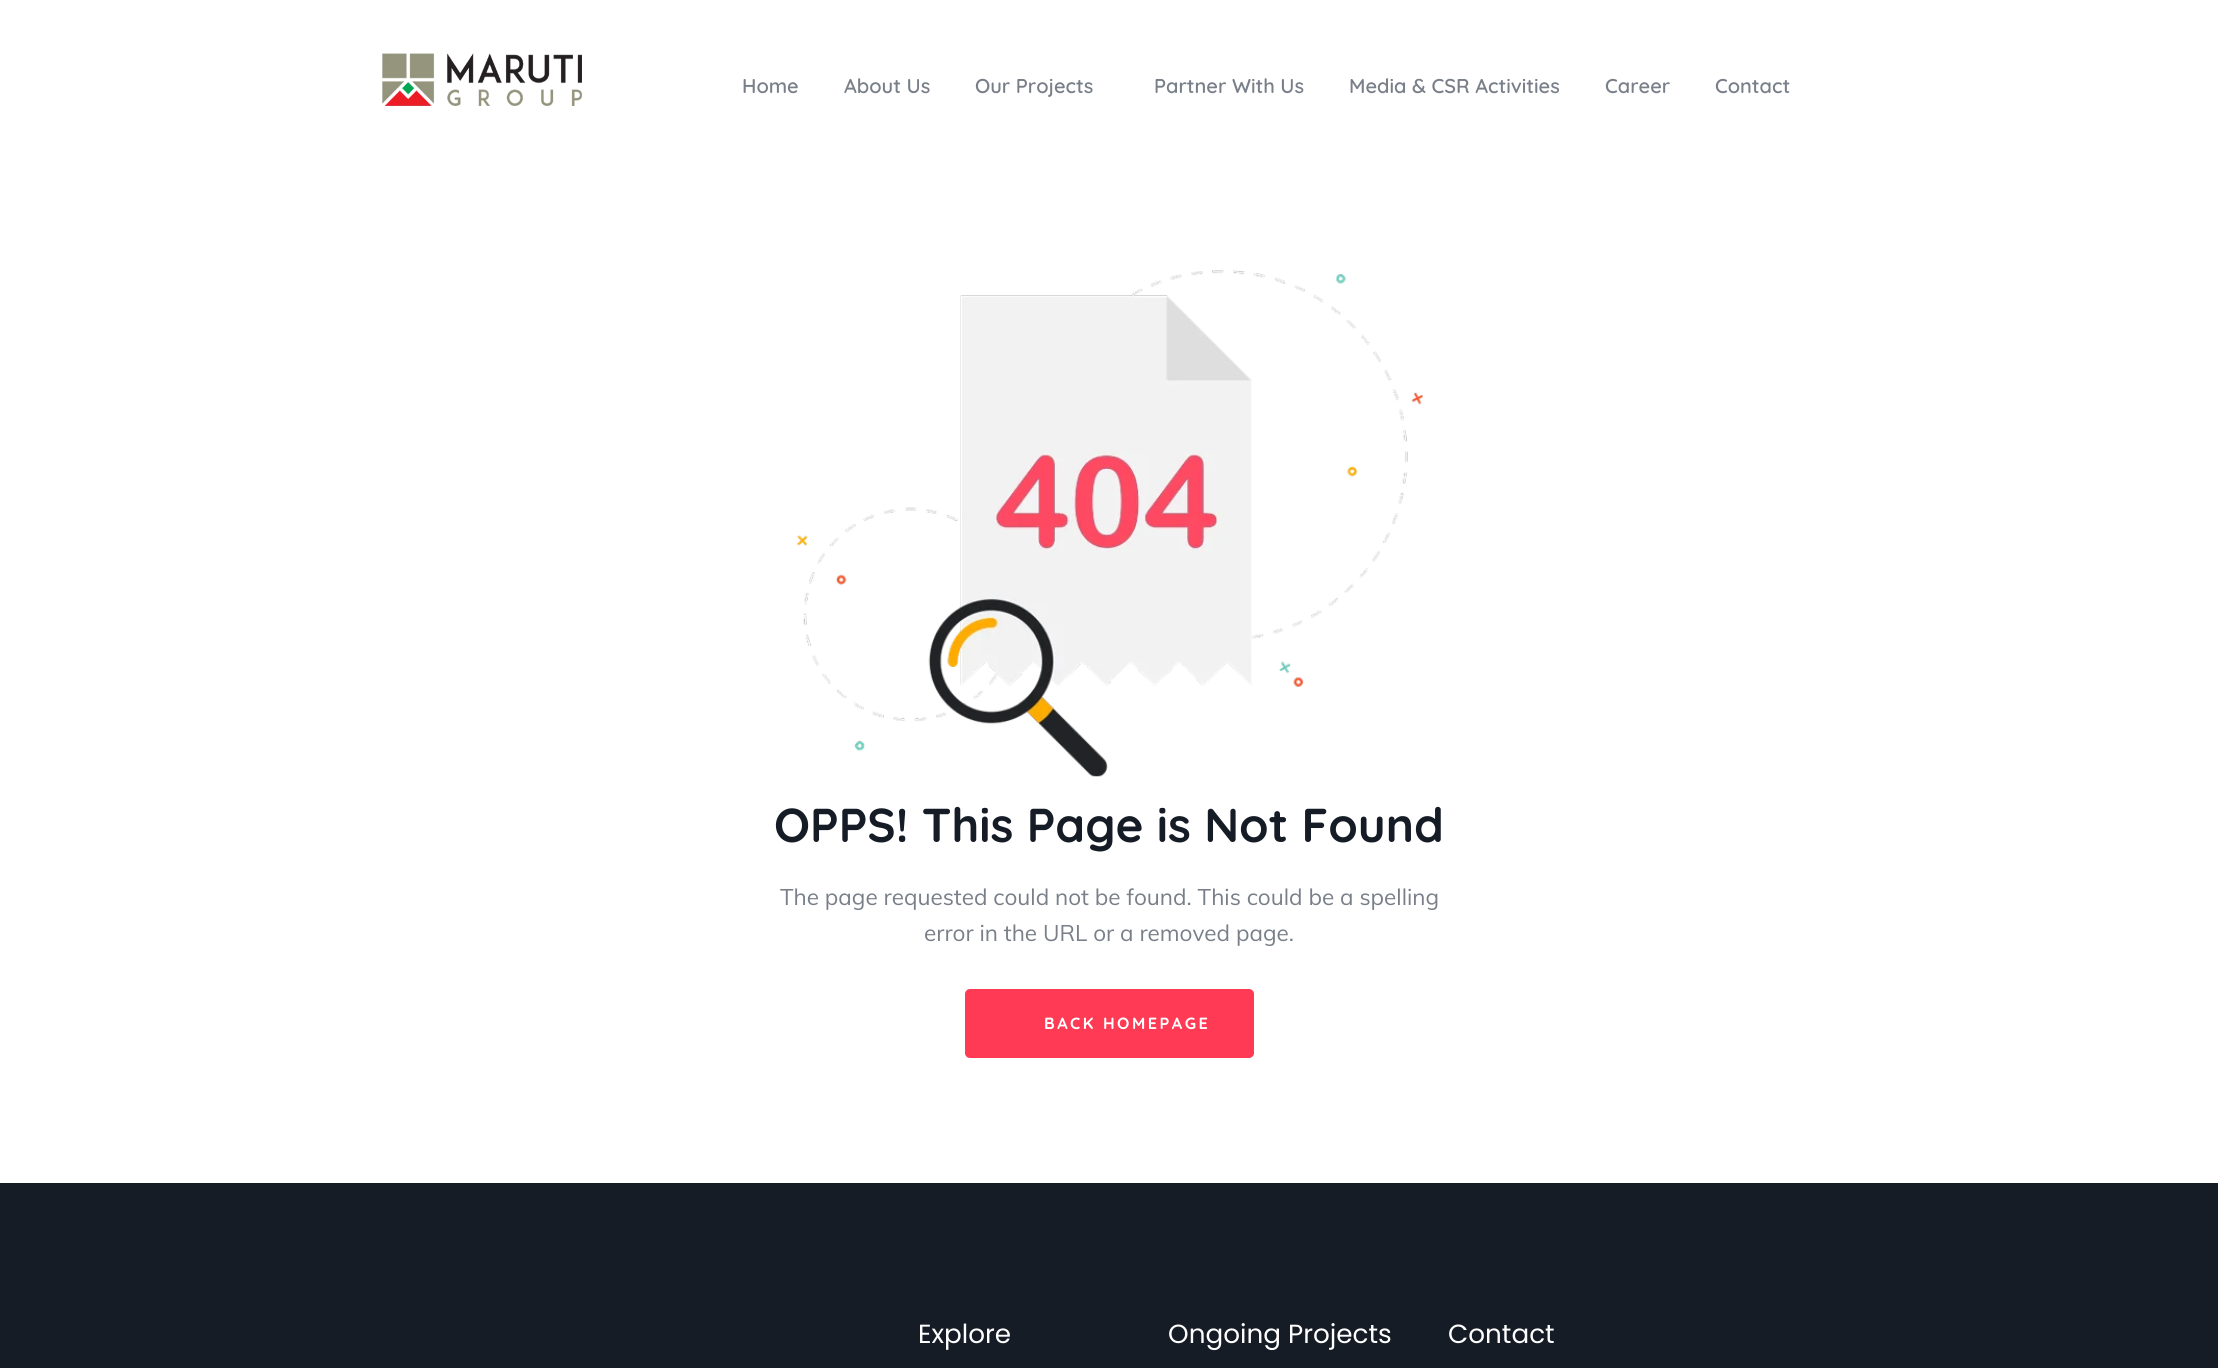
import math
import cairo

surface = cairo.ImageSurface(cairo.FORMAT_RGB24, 2218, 1368)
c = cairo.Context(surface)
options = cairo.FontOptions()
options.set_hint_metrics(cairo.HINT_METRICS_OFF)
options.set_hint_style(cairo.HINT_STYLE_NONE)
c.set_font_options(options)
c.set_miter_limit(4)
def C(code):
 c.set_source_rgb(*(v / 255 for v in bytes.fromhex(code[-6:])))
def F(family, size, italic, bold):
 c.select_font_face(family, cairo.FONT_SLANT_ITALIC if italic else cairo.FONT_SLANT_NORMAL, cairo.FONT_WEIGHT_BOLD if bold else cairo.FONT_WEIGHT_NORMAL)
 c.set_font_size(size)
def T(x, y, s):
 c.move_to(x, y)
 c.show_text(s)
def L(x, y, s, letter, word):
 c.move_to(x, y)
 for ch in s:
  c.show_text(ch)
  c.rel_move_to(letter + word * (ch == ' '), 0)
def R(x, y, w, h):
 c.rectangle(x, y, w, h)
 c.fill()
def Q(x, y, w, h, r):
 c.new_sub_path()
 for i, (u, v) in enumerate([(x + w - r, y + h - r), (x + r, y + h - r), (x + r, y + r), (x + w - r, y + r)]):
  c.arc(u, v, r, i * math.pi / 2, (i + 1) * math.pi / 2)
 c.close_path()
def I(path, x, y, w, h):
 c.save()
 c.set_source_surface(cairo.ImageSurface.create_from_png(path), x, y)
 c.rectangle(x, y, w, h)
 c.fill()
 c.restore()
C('ffffff')
c.paint()
I('1.png',382,53,200,53)
F('Quicksand SemiBold',20,0,0)
C('797f89')
T(742,93,'Home')
T(844,93,'About Us')
T(975,93,'Our Projects')
T(1154,93,'Partner With Us')
T(1349,93,'Media & CSR Activities')
T(1605,93,'Career')
T(1715,93,'Contact')
I('2.png',797,270,626,507)
F('Quicksand',47.5,0,1)
C('161c26')
T(774,842,'OPPS! This Page is Not Found')
F('Muli',22.5,0,0)
C('797f89')
T(780,905,'The page requested could not be found. This could be a spelling')
T(924,941,'error in the URL or a removed page.')
C('ff3a54')
Q(965,989,289,69,5)
c.fill()
F('Quicksand',16.25,0,1)
C('ffffff')
L(1044,1029,'BACK HOMEPAGE',2.5,0)
C('161c26')
R(0,1183,2218,185)
F('Poppins',26.25,0,0)
C('ffffff')
T(918,1343,'Explore')
T(1168,1343,'Ongoing Projects')
T(1448,1343,'Contact')
surface.write_to_png('o.png')
